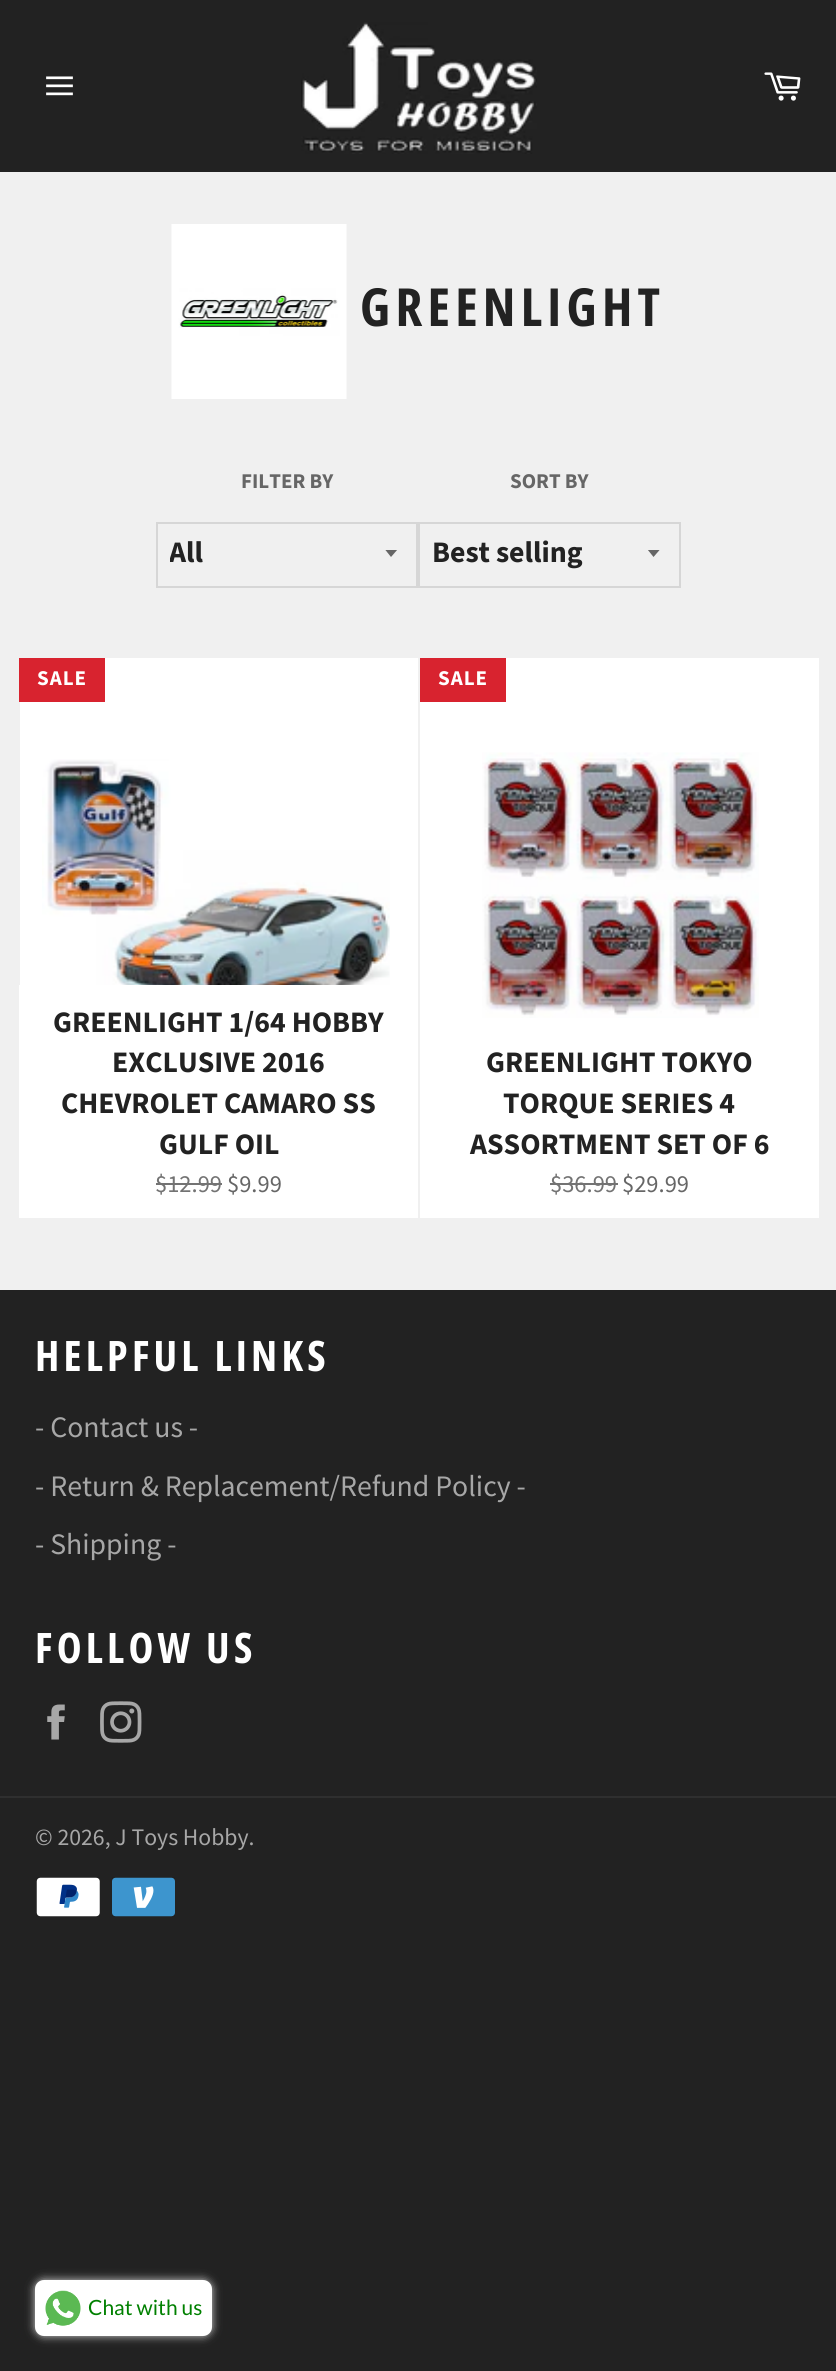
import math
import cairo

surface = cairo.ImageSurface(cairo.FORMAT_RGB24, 836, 2371)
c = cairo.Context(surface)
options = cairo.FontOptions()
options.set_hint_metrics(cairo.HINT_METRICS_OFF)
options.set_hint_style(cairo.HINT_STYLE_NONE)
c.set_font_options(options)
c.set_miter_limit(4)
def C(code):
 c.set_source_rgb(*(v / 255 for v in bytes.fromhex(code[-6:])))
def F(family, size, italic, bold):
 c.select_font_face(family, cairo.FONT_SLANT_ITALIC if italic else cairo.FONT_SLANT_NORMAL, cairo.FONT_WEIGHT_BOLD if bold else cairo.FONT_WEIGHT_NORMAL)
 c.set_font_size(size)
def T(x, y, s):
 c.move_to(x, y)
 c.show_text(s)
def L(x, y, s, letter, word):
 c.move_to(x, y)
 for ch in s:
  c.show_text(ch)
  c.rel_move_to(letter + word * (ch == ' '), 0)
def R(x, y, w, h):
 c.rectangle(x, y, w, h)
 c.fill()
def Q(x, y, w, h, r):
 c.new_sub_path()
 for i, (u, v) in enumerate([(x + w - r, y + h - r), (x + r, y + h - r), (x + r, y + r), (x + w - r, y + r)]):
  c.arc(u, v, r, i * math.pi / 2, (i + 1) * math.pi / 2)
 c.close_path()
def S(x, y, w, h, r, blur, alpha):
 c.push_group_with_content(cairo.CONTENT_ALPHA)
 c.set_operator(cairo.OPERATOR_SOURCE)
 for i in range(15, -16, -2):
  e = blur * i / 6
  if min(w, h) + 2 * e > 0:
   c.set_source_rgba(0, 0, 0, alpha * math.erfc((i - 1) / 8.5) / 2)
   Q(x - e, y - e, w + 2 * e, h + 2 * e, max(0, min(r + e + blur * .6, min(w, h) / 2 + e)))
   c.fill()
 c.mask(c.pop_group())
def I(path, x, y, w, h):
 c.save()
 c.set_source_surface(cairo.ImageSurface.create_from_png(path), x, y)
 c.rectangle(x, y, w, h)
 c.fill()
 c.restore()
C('222222')
c.paint()
C('f0f0f0')
R(0,172,836,1118)
I('1.png',46,76,27,20)
I('2.png',301,22,236,132)
I('3.png',764,72,37,29)
I('4.png',171,224,176,175)
F('Open Sans Condensed',52.5,0,1)
C('222222')
L(360,326,'GREENLIGHT',5.25,0)
F('Source Sans Pro',21,0,1)
C('666666')
T(241,488,'FILTER BY')
c.save()
c.rectangle(385,550,14,8)
c.clip()
c.new_path()
c.move_to(385,549.5)
c.line_to(391,557)
c.line_to(397.5,549.5)
c.close_path()
c.fill()
c.restore()
c.rectangle(157,523,260,64)
C('d6d6d6')
c.stroke()
c.save()
c.rectangle(170,534,198,42)
c.clip()
F('Source Sans Pro',29.75,0,1)
C('222222')
T(169,562,'All')
c.restore()
C('666666')
T(510,488,'SORT BY')
c.save()
c.rectangle(648,550,14,8)
c.clip()
c.new_path()
c.move_to(647.5,549.5)
c.line_to(653.5,557)
c.line_to(660,549.5)
c.close_path()
c.fill()
c.restore()
c.rectangle(419,523,261,64)
C('d6d6d6')
c.stroke()
F('Source Sans Pro',29.75,0,1)
C('222222')
T(432,562,'Best selling')
C('ffffff')
R(20,658,398,327)
C('d8232f')
R(19,658,86,44)
F('Source Sans Pro',21,0,1)
C('ffffff')
L(37,685,'SALE',1,0)
I('5.png',42,759,348,226)
R(19,985,399,233)
F('Source Sans Pro',29.75,0,1)
C('222222')
T(53,1032,'GREENLIGHT 1/64 HOBBY')
T(112,1072,'EXCLUSIVE 2016')
T(61,1113,'CHEVROLET CAMARO SS')
T(159,1154,'GULF OIL')
F('Source Sans Pro',24.5,0,0)
C('737373')
T(155,1192,'$12.99')
R(156,1183,66,2)
C('666666')
T(227,1192,'$9.99')
C('ffffff')
R(420,658,399,560)
C('d8232f')
R(420,658,86,44)
F('Source Sans Pro',21,0,1)
C('ffffff')
L(438,685,'SALE',1,0)
I('6.png',482,752,277,266)
F('Source Sans Pro',29.75,0,1)
C('222222')
T(486,1072,'GREENLIGHT TOKYO')
T(503,1113,'TORQUE SERIES 4')
T(470,1154,'ASSORTMENT SET OF 6')
F('Source Sans Pro',24.5,0,0)
C('737373')
T(550,1192,'$36.99')
R(550,1183,68,2)
C('666666')
T(622,1192,'$29.99')
F('Open Sans Condensed',42,0,1)
C('ffffff')
L(35,1371,'HELPFUL LINKS',4.25,0)
F('Source Sans Pro',29.75,0,0)
C('a7a7a7')
T(35,1437,'- Contact us -')
T(35,1496,'- Return & Replacement/Refund Policy -')
T(35,1554,'- Shipping -')
F('Open Sans Condensed',42,0,1)
C('ffffff')
L(35,1663,'FOLLOW US',4.25,0)
I('7.png',47,1704,18,36)
I('8.png',100,1701,42,42)
C('2f2f2f')
R(0,1796,836,2)
F('Source Sans Pro',23.75,0,0)
C('a7a7a7')
T(35,1845,'© 2026, J Toys Hobby.')
I('9.png',36,1877,64,40)
I('10.png',112,1877,63,40)
C('d3d3d3')
S(35,2280,177,56,9,4.5,1)
C('ffffff')
Q(35,2280,177,56,9)
c.fill()
I('11.png',45,2290,36,36)
F('Lato',21,0,0)
C('008000')
T(88,2315,'Chat with us')
surface.write_to_png('o.png')
